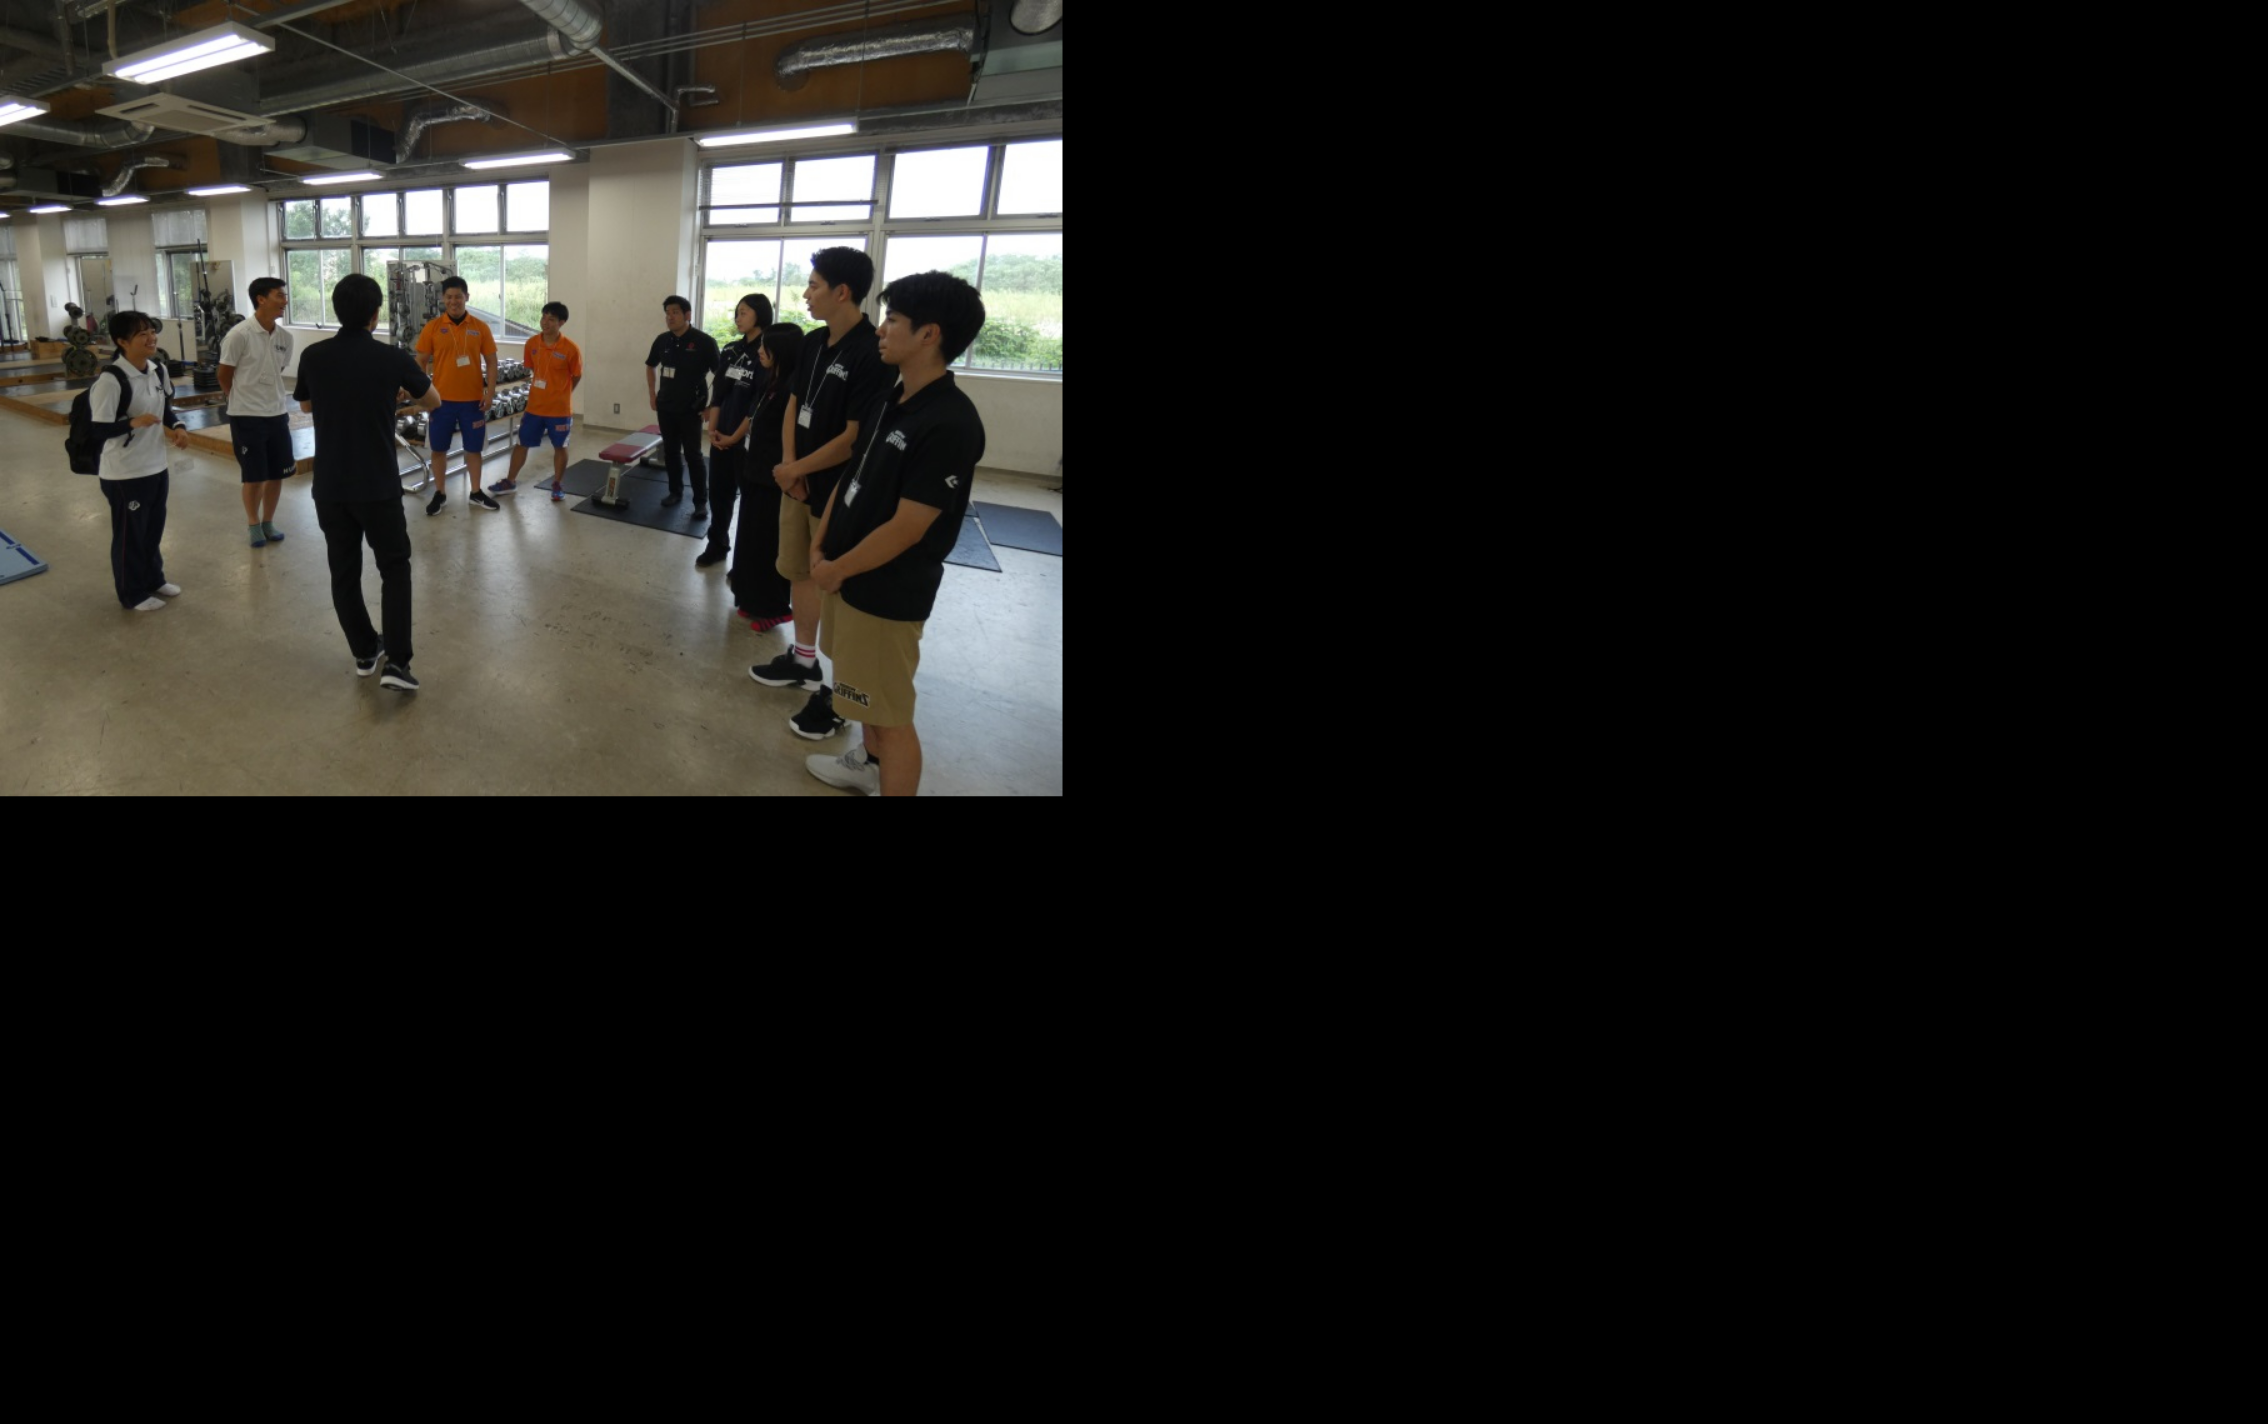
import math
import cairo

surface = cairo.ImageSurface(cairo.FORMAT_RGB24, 2268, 1424)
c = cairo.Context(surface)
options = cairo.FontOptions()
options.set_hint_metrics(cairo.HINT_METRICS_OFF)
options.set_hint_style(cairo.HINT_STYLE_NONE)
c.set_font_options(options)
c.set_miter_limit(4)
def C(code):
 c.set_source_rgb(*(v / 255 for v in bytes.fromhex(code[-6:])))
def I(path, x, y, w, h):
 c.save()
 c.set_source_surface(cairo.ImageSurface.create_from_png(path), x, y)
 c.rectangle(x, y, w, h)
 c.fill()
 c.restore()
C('000000')
c.paint()
I('1.png',0,0,1063,797)
surface.write_to_png('o.png')
